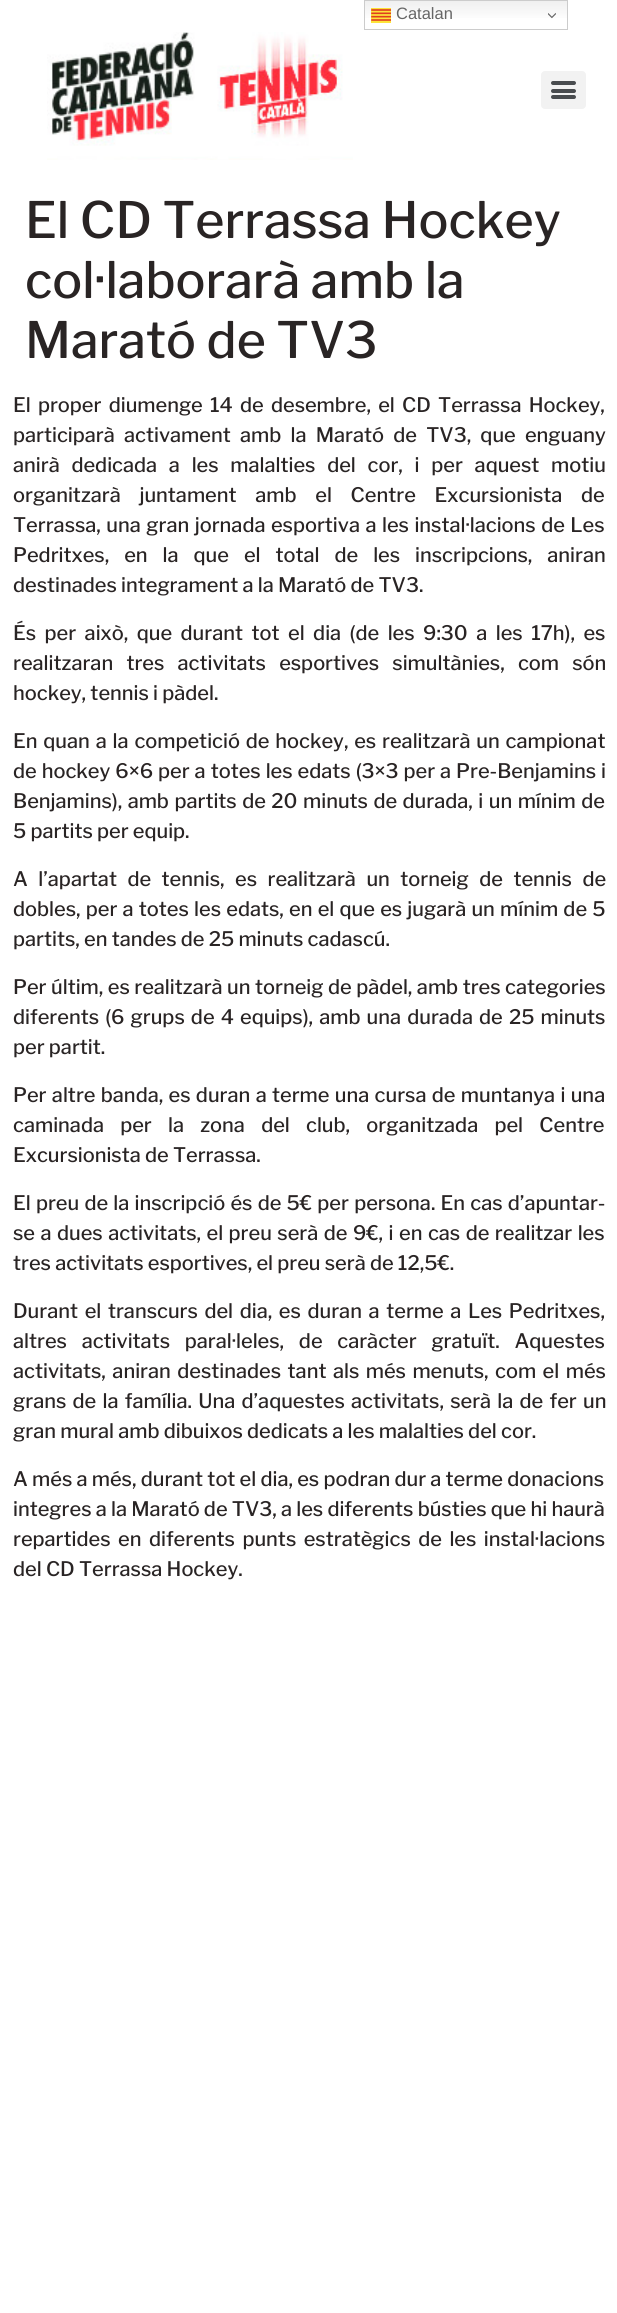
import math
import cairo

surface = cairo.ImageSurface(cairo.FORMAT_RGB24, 617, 2313)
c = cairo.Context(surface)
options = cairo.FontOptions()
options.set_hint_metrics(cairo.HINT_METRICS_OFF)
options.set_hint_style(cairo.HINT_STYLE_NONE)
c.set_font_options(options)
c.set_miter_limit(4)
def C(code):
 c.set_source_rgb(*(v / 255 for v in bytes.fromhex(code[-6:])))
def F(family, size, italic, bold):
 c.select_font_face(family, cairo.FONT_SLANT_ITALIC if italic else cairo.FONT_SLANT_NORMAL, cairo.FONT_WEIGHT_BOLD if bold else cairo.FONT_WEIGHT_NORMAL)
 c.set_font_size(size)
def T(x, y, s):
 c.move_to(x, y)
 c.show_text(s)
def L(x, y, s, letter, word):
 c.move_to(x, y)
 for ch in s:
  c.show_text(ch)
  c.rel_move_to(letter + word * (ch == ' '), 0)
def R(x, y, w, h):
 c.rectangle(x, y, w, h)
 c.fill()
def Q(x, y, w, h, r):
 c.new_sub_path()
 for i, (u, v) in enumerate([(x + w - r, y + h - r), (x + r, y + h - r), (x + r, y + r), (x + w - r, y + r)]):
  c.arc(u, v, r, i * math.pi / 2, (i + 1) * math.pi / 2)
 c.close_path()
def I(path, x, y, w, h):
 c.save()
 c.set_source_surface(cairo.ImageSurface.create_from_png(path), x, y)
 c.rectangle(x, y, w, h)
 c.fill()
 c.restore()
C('ffffff')
c.paint()
gradient = cairo.LinearGradient(466,0,466,30)
gradient.add_color_stop_rgba(0,0.937,0.937,0.937,1)
gradient.add_color_stop_rgba(.7,1,1,1,1)
c.set_source(gradient)
R(365,1,202,17)
c.rectangle(364.5,.5,203,29)
C('cccccc')
c.set_line_width(1)
c.stroke()
I('1.png',371,8,20,15)
F('Liberation Sans',16.5,0,0)
C('666666')
T(396,19,'Catalan')
I('2.png',548,13,8,6)
I('3.png',47,32,306,128)
C('f2f2f2')
Q(541,71,45,38,4)
c.fill()
C('494c4f')
Q(551,89,25,4,2)
c.fill()
Q(551,81,25,4,2)
c.fill()
Q(551,95,25,4,2)
c.fill()
F('Libre Franklin Medium',50,0,0)
C('292424')
T(25,238,'El CD Terrassa Hockey')
T(25,298,'col·laborarà amb la')
T(25,358,'Marató de TV3')
F('Libre Franklin Medium',20,0,0)
L(13,412,'El proper diumenge 14 de desembre, el CD Terrassa Hockey,',0,3)
L(13,442,'participarà activament amb la Marató de TV3, que enguany',0,5)
L(13,472,'anirà dedicada a les malalties del cor, i per aquest motiu',0,7.5)
L(13,502,'organitzarà juntament amb el Centre Excursionista de',0,14.5)
L(13,532,'Terrassa, una gran jornada esportiva a les instal·lacions de Les',0,1.25)
L(13,562,'Pedritxes, en la que el total de les inscripcions, aniran',0,10.75)
T(13,592,'destinades integrament a la Marató de TV3.')
L(13,640,'És per això, que durant tot el dia (de les 9:30 a les 17h), es',0,4.25)
L(13,670,'realitzaran tres activitats esportives simultànies, com són',0,9)
T(13,700,'hockey, tennis i pàdel.')
L(13,748,'En quan a la competició de hockey, es realitzarà un campionat',0,1.6)
L(13,778,'de hockey 6×6 per a totes les edats (3×3 per a Pre-Benjamins i',0,.75)
L(13,808,'Benjamins), amb partits de 20 minuts de durada, i un mínim de',0,1.25)
T(13,838,'5 partits per equip.')
L(13,886,'A l’apartat de tennis, es realitzarà un torneig de tennis de',0,6.25)
L(13,916,'dobles, per a totes les edats, en el que es jugarà un mínim de 5',0,1)
T(13,946,'partits, en tandes de 25 minuts cadascú.')
L(13,994,'Per últim, es realitzarà un torneig de pàdel, amb tres categories',0,.25)
L(13,1024,'diferents (6 grups de 4 equips), amb una durada de 25 minuts',0,1.9)
T(13,1054,'per partit.')
L(13,1102,'Per altre banda, es duran a terme una cursa de muntanya i una',0,1.1)
L(13,1132,'caminada per la zona del club, organitzada pel Centre',0,12)
T(13,1162,'Excursionista de Terrassa.')
L(13,1210,'El preu de la inscripció és de 5€ per persona. En cas d’apuntar-',0,1)
L(13,1240,'se a dues activitats, el preu serà de 9€, i en cas de realitzar les',0,1.25)
T(13,1270,'tres activitats esportives, el preu serà de 12,5€.')
L(13,1318,'Durant el transcurs del dia, es duran a terme a Les Pedritxes,',0,2.4)
L(13,1348,'altres activitats paral·leles, de caràcter gratuït. Aquestes',0,10.5)
L(13,1378,'activitats, aniran destinades tant als més menuts, com el més',0,2.25)
L(13,1408,'grans de la família. Una d’aquestes activitats, serà la de fer un',0,2)
T(13,1438,'gran mural amb dibuixos dedicats a les malalties del cor.')
T(13,1486,'A més a més, durant tot el dia, es podran dur a terme donacions')
T(13,1516,'integres a la Marató de TV3, a les diferents bústies que hi haurà')
L(13,1546,'repartides en diferents punts estratègics de les instal·lacions',0,3.25)
T(13,1576,'del CD Terrassa Hockey.')
surface.write_to_png('o.png')
